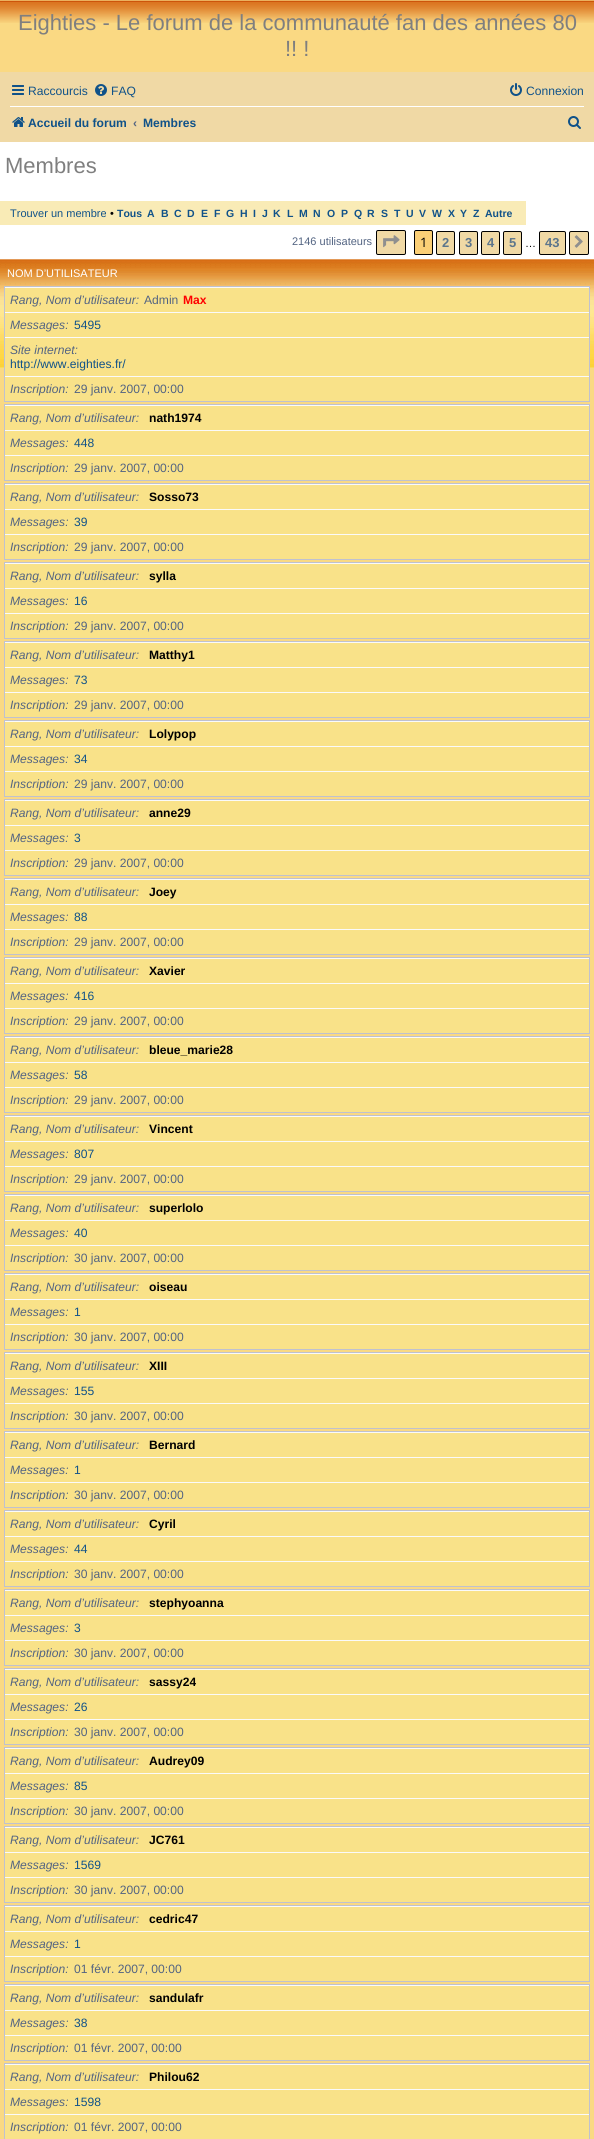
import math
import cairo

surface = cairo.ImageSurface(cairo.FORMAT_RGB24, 594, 2139)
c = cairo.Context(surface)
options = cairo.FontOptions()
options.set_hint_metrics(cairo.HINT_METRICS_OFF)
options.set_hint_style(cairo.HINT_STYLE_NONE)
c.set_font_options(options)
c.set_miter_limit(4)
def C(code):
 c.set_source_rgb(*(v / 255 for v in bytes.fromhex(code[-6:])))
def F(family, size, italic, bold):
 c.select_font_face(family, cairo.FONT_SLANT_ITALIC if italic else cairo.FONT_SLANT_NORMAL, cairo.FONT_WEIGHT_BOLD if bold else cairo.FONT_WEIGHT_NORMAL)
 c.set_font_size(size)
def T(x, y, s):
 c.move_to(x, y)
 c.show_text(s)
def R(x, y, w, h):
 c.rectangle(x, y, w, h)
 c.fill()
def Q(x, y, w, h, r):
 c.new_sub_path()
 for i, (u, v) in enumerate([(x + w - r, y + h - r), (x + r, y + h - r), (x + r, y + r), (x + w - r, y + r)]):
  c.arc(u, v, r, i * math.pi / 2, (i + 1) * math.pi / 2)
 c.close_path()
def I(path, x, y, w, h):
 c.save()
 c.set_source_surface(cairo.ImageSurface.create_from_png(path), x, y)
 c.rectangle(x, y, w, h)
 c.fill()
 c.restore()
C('ffffff')
c.paint()
C('fad983')
R(0,23,594,49)
I('1.png',0,0,594,23)
F('Liberation Sans',22,0,0)
C('7f7f7f')
T(18,30,'Eighties - Le forum de la communauté fan des années 80')
T(285,56,'!! !')
C('f0d9a5')
R(0,72,594,70)
I('2.png',12,85,12,10)
F('Liberation Sans',12.1,0,0)
C('105289')
T(28,95,'Raccourcis')
I('3.png',95,84,12,12)
T(111,95,'FAQ')
I('4.png',510,83,12,13)
T(526,95,'Connexion')
C('ffffff')
R(10,106,574,1)
I('5.png',12,117,13,10)
F('Liberation Sans',12.1,0,1)
C('105289')
T(28,127,'Accueil du forum')
C('536482')
T(133,127,'‹')
C('105289')
T(143,127,'Membres')
I('6.png',568,116,13,13)
F('Liberation Sans',22,0,0)
C('7f7f7f')
T(5,173,'Membres')
C('f9ebb6')
R(0,201,526,24)
F('Liberation Sans',11,0,0)
C('105289')
T(10,217,'Trouver un membre')
C('000000')
T(110,217,'•')
F('Liberation Sans',10.5,0,1)
C('105289')
T(117,217,'Tous')
T(147,217,'A')
T(161,217,'B')
T(174,217,'C')
T(187,217,'D')
T(201,217,'E')
T(214,217,'F')
T(226,217,'G')
T(240,217,'H')
T(253,217,'I')
T(262,217,'J')
T(273,217,'K')
T(287,217,'L')
T(299,217,'M')
T(313,217,'N')
T(327,217,'O')
T(341,217,'P')
T(354,217,'Q')
T(367,217,'R')
T(381,217,'S')
T(394,217,'T')
T(406,217,'U')
T(419,217,'V')
T(432,217,'W')
T(448,217,'X')
T(460,217,'Y')
T(473,217,'Z')
T(485,217,'Autre')
F('Liberation Sans',11,0,0)
C('536482')
T(292,245,'2146 utilisateurs')
C('f0d9a5')
Q(376.5,230.5,29,24,1.5)
c.fill_preserve()
C('000000')
c.set_line_width(1)
c.stroke()
I('7.png',383,235,17,13)
C('fbcf76')
Q(414.5,230.5,18,24,1.5)
c.fill_preserve()
C('000000')
c.stroke()
F('Open Sans',13,0,0)
T(420,247,'1')
C('f0d9a5')
Q(436.5,231.5,18,23,1.5)
c.fill_preserve()
C('000000')
c.stroke()
F('Liberation Sans',13,0,1)
C('5c758c')
T(442,247,'2')
C('f0d9a5')
Q(459.5,231.5,18,23,1.5)
c.fill_preserve()
C('000000')
c.stroke()
C('5c758c')
T(465,247,'3')
C('f0d9a5')
Q(481.5,231.5,18,23,1.5)
c.fill_preserve()
C('000000')
c.stroke()
C('5c758c')
T(487,247,'4')
C('f0d9a5')
Q(503.5,231.5,18,23,1.5)
c.fill_preserve()
C('000000')
c.stroke()
C('5c758c')
T(509,247,'5')
F('Liberation Sans',11,0,0)
C('000000')
T(525,247,'…')
C('f0d9a5')
Q(539.5,231.5,26,23,1.5)
c.fill_preserve()
C('000000')
c.stroke()
F('Liberation Sans',13,0,1)
C('5c758c')
T(545,247,'43')
C('f0d9a5')
Q(569.5,231.5,19,23,1.5)
c.fill_preserve()
C('000000')
c.stroke()
I('8.png',574,235,9,13)
C('fad983')
R(0,368,594,1771)
I('9.png',0,259,594,109)
F('Liberation Sans',11,0,0)
C('ffffff')
T(7,277,'NOM D’UTILISATEUR')
C('f9e289')
R(5,288,584,113)
c.rectangle(4.5,286.5,585,115)
C('bfc1cf')
c.stroke()
C('fafafa')
R(5,287,584,1)
F('Liberation Sans',12.1,1,0)
C('536482')
T(10,304,'Rang, Nom d’utilisateur:')
F('Liberation Sans',12.1,0,0)
T(144,304,'Admin')
F('Liberation Sans',12.1,0,1)
C('ff0000')
T(183,304,'Max')
C('fafafa')
R(5,312,584,1)
F('Liberation Sans',12.1,1,0)
C('536482')
T(10,329,'Messages:')
F('Liberation Sans',12.1,0,0)
C('105289')
T(74,329,'5495')
C('fafafa')
R(5,337,584,1)
F('Liberation Sans',12.1,1,0)
C('536482')
T(10,354,'Site internet:')
F('Liberation Sans',12.1,0,0)
C('105289')
T(10,368,'http://www.eighties.fr/')
C('fafafa')
R(5,376,584,1)
F('Liberation Sans',12.1,1,0)
C('536482')
T(10,393,'Inscription:')
F('Liberation Sans',12.1,0,0)
T(74,393,'29 janv. 2007, 00:00')
C('f9e289')
R(5,406,584,74)
c.rectangle(4.5,404.5,585,76)
C('bfc1cf')
c.stroke()
C('fafafa')
R(5,405,584,1)
F('Liberation Sans',12.1,1,0)
C('536482')
T(10,422,'Rang, Nom d’utilisateur:')
F('Liberation Sans',12.1,0,1)
C('000000')
T(149,422,'nath1974')
C('fafafa')
R(5,430,584,1)
F('Liberation Sans',12.1,1,0)
C('536482')
T(10,447,'Messages:')
F('Liberation Sans',12.1,0,0)
C('105289')
T(74,447,'448')
C('fafafa')
R(5,455,584,1)
F('Liberation Sans',12.1,1,0)
C('536482')
T(10,472,'Inscription:')
F('Liberation Sans',12.1,0,0)
T(74,472,'29 janv. 2007, 00:00')
C('f9e289')
R(5,485,584,74)
c.rectangle(4.5,483.5,585,76)
C('bfc1cf')
c.stroke()
C('fafafa')
R(5,484,584,1)
F('Liberation Sans',12.1,1,0)
C('536482')
T(10,501,'Rang, Nom d’utilisateur:')
F('Liberation Sans',12.1,0,1)
C('000000')
T(149,501,'Sosso73')
C('fafafa')
R(5,509,584,1)
F('Liberation Sans',12.1,1,0)
C('536482')
T(10,526,'Messages:')
F('Liberation Sans',12.1,0,0)
C('105289')
T(74,526,'39')
C('fafafa')
R(5,534,584,1)
F('Liberation Sans',12.1,1,0)
C('536482')
T(10,551,'Inscription:')
F('Liberation Sans',12.1,0,0)
T(74,551,'29 janv. 2007, 00:00')
C('f9e289')
R(5,564,584,74)
c.rectangle(4.5,562.5,585,76)
C('bfc1cf')
c.stroke()
C('fafafa')
R(5,563,584,1)
F('Liberation Sans',12.1,1,0)
C('536482')
T(10,580,'Rang, Nom d’utilisateur:')
F('Liberation Sans',12.1,0,1)
C('000000')
T(149,580,'sylla')
C('fafafa')
R(5,588,584,1)
F('Liberation Sans',12.1,1,0)
C('536482')
T(10,605,'Messages:')
F('Liberation Sans',12.1,0,0)
C('105289')
T(74,605,'16')
C('fafafa')
R(5,613,584,1)
F('Liberation Sans',12.1,1,0)
C('536482')
T(10,630,'Inscription:')
F('Liberation Sans',12.1,0,0)
T(74,630,'29 janv. 2007, 00:00')
C('f9e289')
R(5,643,584,74)
c.rectangle(4.5,641.5,585,76)
C('bfc1cf')
c.stroke()
C('fafafa')
R(5,642,584,1)
F('Liberation Sans',12.1,1,0)
C('536482')
T(10,659,'Rang, Nom d’utilisateur:')
F('Liberation Sans',12.1,0,1)
C('000000')
T(149,659,'Matthy1')
C('fafafa')
R(5,667,584,1)
F('Liberation Sans',12.1,1,0)
C('536482')
T(10,684,'Messages:')
F('Liberation Sans',12.1,0,0)
C('105289')
T(74,684,'73')
C('fafafa')
R(5,692,584,1)
F('Liberation Sans',12.1,1,0)
C('536482')
T(10,709,'Inscription:')
F('Liberation Sans',12.1,0,0)
T(74,709,'29 janv. 2007, 00:00')
C('f9e289')
R(5,722,584,74)
c.rectangle(4.5,720.5,585,76)
C('bfc1cf')
c.stroke()
C('fafafa')
R(5,721,584,1)
F('Liberation Sans',12.1,1,0)
C('536482')
T(10,738,'Rang, Nom d’utilisateur:')
F('Liberation Sans',12.1,0,1)
C('000000')
T(149,738,'Lolypop')
C('fafafa')
R(5,746,584,1)
F('Liberation Sans',12.1,1,0)
C('536482')
T(10,763,'Messages:')
F('Liberation Sans',12.1,0,0)
C('105289')
T(74,763,'34')
C('fafafa')
R(5,771,584,1)
F('Liberation Sans',12.1,1,0)
C('536482')
T(10,788,'Inscription:')
F('Liberation Sans',12.1,0,0)
T(74,788,'29 janv. 2007, 00:00')
C('f9e289')
R(5,801,584,74)
c.rectangle(4.5,799.5,585,76)
C('bfc1cf')
c.stroke()
C('fafafa')
R(5,800,584,1)
F('Liberation Sans',12.1,1,0)
C('536482')
T(10,817,'Rang, Nom d’utilisateur:')
F('Liberation Sans',12.1,0,1)
C('000000')
T(149,817,'anne29')
C('fafafa')
R(5,825,584,1)
F('Liberation Sans',12.1,1,0)
C('536482')
T(10,842,'Messages:')
F('Liberation Sans',12.1,0,0)
C('105289')
T(74,842,'3')
C('fafafa')
R(5,850,584,1)
F('Liberation Sans',12.1,1,0)
C('536482')
T(10,867,'Inscription:')
F('Liberation Sans',12.1,0,0)
T(74,867,'29 janv. 2007, 00:00')
C('f9e289')
R(5,880,584,74)
c.rectangle(4.5,878.5,585,76)
C('bfc1cf')
c.stroke()
C('fafafa')
R(5,879,584,1)
F('Liberation Sans',12.1,1,0)
C('536482')
T(10,896,'Rang, Nom d’utilisateur:')
F('Liberation Sans',12.1,0,1)
C('000000')
T(149,896,'Joey')
C('fafafa')
R(5,904,584,1)
F('Liberation Sans',12.1,1,0)
C('536482')
T(10,921,'Messages:')
F('Liberation Sans',12.1,0,0)
C('105289')
T(74,921,'88')
C('fafafa')
R(5,929,584,1)
F('Liberation Sans',12.1,1,0)
C('536482')
T(10,946,'Inscription:')
F('Liberation Sans',12.1,0,0)
T(74,946,'29 janv. 2007, 00:00')
C('f9e289')
R(5,959,584,74)
c.rectangle(4.5,957.5,585,76)
C('bfc1cf')
c.stroke()
C('fafafa')
R(5,958,584,1)
F('Liberation Sans',12.1,1,0)
C('536482')
T(10,975,'Rang, Nom d’utilisateur:')
F('Liberation Sans',12.1,0,1)
C('000000')
T(149,975,'Xavier')
C('fafafa')
R(5,983,584,1)
F('Liberation Sans',12.1,1,0)
C('536482')
T(10,1000,'Messages:')
F('Liberation Sans',12.1,0,0)
C('105289')
T(74,1000,'416')
C('fafafa')
R(5,1008,584,1)
F('Liberation Sans',12.1,1,0)
C('536482')
T(10,1025,'Inscription:')
F('Liberation Sans',12.1,0,0)
T(74,1025,'29 janv. 2007, 00:00')
C('f9e289')
R(5,1038,584,74)
c.rectangle(4.5,1036.5,585,76)
C('bfc1cf')
c.stroke()
C('fafafa')
R(5,1037,584,1)
F('Liberation Sans',12.1,1,0)
C('536482')
T(10,1054,'Rang, Nom d’utilisateur:')
F('Liberation Sans',12.1,0,1)
C('000000')
T(149,1054,'bleue_marie28')
C('fafafa')
R(5,1062,584,1)
F('Liberation Sans',12.1,1,0)
C('536482')
T(10,1079,'Messages:')
F('Liberation Sans',12.1,0,0)
C('105289')
T(74,1079,'58')
C('fafafa')
R(5,1087,584,1)
F('Liberation Sans',12.1,1,0)
C('536482')
T(10,1104,'Inscription:')
F('Liberation Sans',12.1,0,0)
T(74,1104,'29 janv. 2007, 00:00')
C('f9e289')
R(5,1117,584,74)
c.rectangle(4.5,1115.5,585,76)
C('bfc1cf')
c.stroke()
C('fafafa')
R(5,1116,584,1)
F('Liberation Sans',12.1,1,0)
C('536482')
T(10,1133,'Rang, Nom d’utilisateur:')
F('Liberation Sans',12.1,0,1)
C('000000')
T(149,1133,'Vincent')
C('fafafa')
R(5,1141,584,1)
F('Liberation Sans',12.1,1,0)
C('536482')
T(10,1158,'Messages:')
F('Liberation Sans',12.1,0,0)
C('105289')
T(74,1158,'807')
C('fafafa')
R(5,1166,584,1)
F('Liberation Sans',12.1,1,0)
C('536482')
T(10,1183,'Inscription:')
F('Liberation Sans',12.1,0,0)
T(74,1183,'29 janv. 2007, 00:00')
C('f9e289')
R(5,1196,584,74)
c.rectangle(4.5,1194.5,585,76)
C('bfc1cf')
c.stroke()
C('fafafa')
R(5,1195,584,1)
F('Liberation Sans',12.1,1,0)
C('536482')
T(10,1212,'Rang, Nom d’utilisateur:')
F('Liberation Sans',12.1,0,1)
C('000000')
T(149,1212,'superlolo')
C('fafafa')
R(5,1220,584,1)
F('Liberation Sans',12.1,1,0)
C('536482')
T(10,1237,'Messages:')
F('Liberation Sans',12.1,0,0)
C('105289')
T(74,1237,'40')
C('fafafa')
R(5,1245,584,1)
F('Liberation Sans',12.1,1,0)
C('536482')
T(10,1262,'Inscription:')
F('Liberation Sans',12.1,0,0)
T(74,1262,'30 janv. 2007, 00:00')
C('f9e289')
R(5,1275,584,74)
c.rectangle(4.5,1273.5,585,76)
C('bfc1cf')
c.stroke()
C('fafafa')
R(5,1274,584,1)
F('Liberation Sans',12.1,1,0)
C('536482')
T(10,1291,'Rang, Nom d’utilisateur:')
F('Liberation Sans',12.1,0,1)
C('000000')
T(149,1291,'oiseau')
C('fafafa')
R(5,1299,584,1)
F('Liberation Sans',12.1,1,0)
C('536482')
T(10,1316,'Messages:')
F('Liberation Sans',12.1,0,0)
C('105289')
T(74,1316,'1')
C('fafafa')
R(5,1324,584,1)
F('Liberation Sans',12.1,1,0)
C('536482')
T(10,1341,'Inscription:')
F('Liberation Sans',12.1,0,0)
T(74,1341,'30 janv. 2007, 00:00')
C('f9e289')
R(5,1354,584,74)
c.rectangle(4.5,1352.5,585,76)
C('bfc1cf')
c.stroke()
C('fafafa')
R(5,1353,584,1)
F('Liberation Sans',12.1,1,0)
C('536482')
T(10,1370,'Rang, Nom d’utilisateur:')
F('Liberation Sans',12.1,0,1)
C('000000')
T(149,1370,'XIII')
C('fafafa')
R(5,1378,584,1)
F('Liberation Sans',12.1,1,0)
C('536482')
T(10,1395,'Messages:')
F('Liberation Sans',12.1,0,0)
C('105289')
T(74,1395,'155')
C('fafafa')
R(5,1403,584,1)
F('Liberation Sans',12.1,1,0)
C('536482')
T(10,1420,'Inscription:')
F('Liberation Sans',12.1,0,0)
T(74,1420,'30 janv. 2007, 00:00')
C('f9e289')
R(5,1433,584,74)
c.rectangle(4.5,1431.5,585,76)
C('bfc1cf')
c.stroke()
C('fafafa')
R(5,1432,584,1)
F('Liberation Sans',12.1,1,0)
C('536482')
T(10,1449,'Rang, Nom d’utilisateur:')
F('Liberation Sans',12.1,0,1)
C('000000')
T(149,1449,'Bernard')
C('fafafa')
R(5,1457,584,1)
F('Liberation Sans',12.1,1,0)
C('536482')
T(10,1474,'Messages:')
F('Liberation Sans',12.1,0,0)
C('105289')
T(74,1474,'1')
C('fafafa')
R(5,1482,584,1)
F('Liberation Sans',12.1,1,0)
C('536482')
T(10,1499,'Inscription:')
F('Liberation Sans',12.1,0,0)
T(74,1499,'30 janv. 2007, 00:00')
C('f9e289')
R(5,1512,584,74)
c.rectangle(4.5,1510.5,585,76)
C('bfc1cf')
c.stroke()
C('fafafa')
R(5,1511,584,1)
F('Liberation Sans',12.1,1,0)
C('536482')
T(10,1528,'Rang, Nom d’utilisateur:')
F('Liberation Sans',12.1,0,1)
C('000000')
T(149,1528,'Cyril')
C('fafafa')
R(5,1536,584,1)
F('Liberation Sans',12.1,1,0)
C('536482')
T(10,1553,'Messages:')
F('Liberation Sans',12.1,0,0)
C('105289')
T(74,1553,'44')
C('fafafa')
R(5,1561,584,1)
F('Liberation Sans',12.1,1,0)
C('536482')
T(10,1578,'Inscription:')
F('Liberation Sans',12.1,0,0)
T(74,1578,'30 janv. 2007, 00:00')
C('f9e289')
R(5,1591,584,74)
c.rectangle(4.5,1589.5,585,76)
C('bfc1cf')
c.stroke()
C('fafafa')
R(5,1590,584,1)
F('Liberation Sans',12.1,1,0)
C('536482')
T(10,1607,'Rang, Nom d’utilisateur:')
F('Liberation Sans',12.1,0,1)
C('000000')
T(149,1607,'stephyoanna')
C('fafafa')
R(5,1615,584,1)
F('Liberation Sans',12.1,1,0)
C('536482')
T(10,1632,'Messages:')
F('Liberation Sans',12.1,0,0)
C('105289')
T(74,1632,'3')
C('fafafa')
R(5,1640,584,1)
F('Liberation Sans',12.1,1,0)
C('536482')
T(10,1657,'Inscription:')
F('Liberation Sans',12.1,0,0)
T(74,1657,'30 janv. 2007, 00:00')
C('f9e289')
R(5,1670,584,74)
c.rectangle(4.5,1668.5,585,76)
C('bfc1cf')
c.stroke()
C('fafafa')
R(5,1669,584,1)
F('Liberation Sans',12.1,1,0)
C('536482')
T(10,1686,'Rang, Nom d’utilisateur:')
F('Liberation Sans',12.1,0,1)
C('000000')
T(149,1686,'sassy24')
C('fafafa')
R(5,1694,584,1)
F('Liberation Sans',12.1,1,0)
C('536482')
T(10,1711,'Messages:')
F('Liberation Sans',12.1,0,0)
C('105289')
T(74,1711,'26')
C('fafafa')
R(5,1719,584,1)
F('Liberation Sans',12.1,1,0)
C('536482')
T(10,1736,'Inscription:')
F('Liberation Sans',12.1,0,0)
T(74,1736,'30 janv. 2007, 00:00')
C('f9e289')
R(5,1749,584,74)
c.rectangle(4.5,1747.5,585,76)
C('bfc1cf')
c.stroke()
C('fafafa')
R(5,1748,584,1)
F('Liberation Sans',12.1,1,0)
C('536482')
T(10,1765,'Rang, Nom d’utilisateur:')
F('Liberation Sans',12.1,0,1)
C('000000')
T(149,1765,'Audrey09')
C('fafafa')
R(5,1773,584,1)
F('Liberation Sans',12.1,1,0)
C('536482')
T(10,1790,'Messages:')
F('Liberation Sans',12.1,0,0)
C('105289')
T(74,1790,'85')
C('fafafa')
R(5,1798,584,1)
F('Liberation Sans',12.1,1,0)
C('536482')
T(10,1815,'Inscription:')
F('Liberation Sans',12.1,0,0)
T(74,1815,'30 janv. 2007, 00:00')
C('f9e289')
R(5,1828,584,74)
c.rectangle(4.5,1826.5,585,76)
C('bfc1cf')
c.stroke()
C('fafafa')
R(5,1827,584,1)
F('Liberation Sans',12.1,1,0)
C('536482')
T(10,1844,'Rang, Nom d’utilisateur:')
F('Liberation Sans',12.1,0,1)
C('000000')
T(149,1844,'JC761')
C('fafafa')
R(5,1852,584,1)
F('Liberation Sans',12.1,1,0)
C('536482')
T(10,1869,'Messages:')
F('Liberation Sans',12.1,0,0)
C('105289')
T(74,1869,'1569')
C('fafafa')
R(5,1877,584,1)
F('Liberation Sans',12.1,1,0)
C('536482')
T(10,1894,'Inscription:')
F('Liberation Sans',12.1,0,0)
T(74,1894,'30 janv. 2007, 00:00')
C('f9e289')
R(5,1907,584,74)
c.rectangle(4.5,1905.5,585,76)
C('bfc1cf')
c.stroke()
C('fafafa')
R(5,1906,584,1)
F('Liberation Sans',12.1,1,0)
C('536482')
T(10,1923,'Rang, Nom d’utilisateur:')
F('Liberation Sans',12.1,0,1)
C('000000')
T(149,1923,'cedric47')
C('fafafa')
R(5,1931,584,1)
F('Liberation Sans',12.1,1,0)
C('536482')
T(10,1948,'Messages:')
F('Liberation Sans',12.1,0,0)
C('105289')
T(74,1948,'1')
C('fafafa')
R(5,1956,584,1)
F('Liberation Sans',12.1,1,0)
C('536482')
T(10,1973,'Inscription:')
F('Liberation Sans',12.1,0,0)
T(74,1973,'01 févr. 2007, 00:00')
C('f9e289')
R(5,1986,584,74)
c.rectangle(4.5,1984.5,585,76)
C('bfc1cf')
c.stroke()
C('fafafa')
R(5,1985,584,1)
F('Liberation Sans',12.1,1,0)
C('536482')
T(10,2002,'Rang, Nom d’utilisateur:')
F('Liberation Sans',12.1,0,1)
C('000000')
T(149,2002,'sandulafr')
C('fafafa')
R(5,2010,584,1)
F('Liberation Sans',12.1,1,0)
C('536482')
T(10,2027,'Messages:')
F('Liberation Sans',12.1,0,0)
C('105289')
T(74,2027,'38')
C('fafafa')
R(5,2035,584,1)
F('Liberation Sans',12.1,1,0)
C('536482')
T(10,2052,'Inscription:')
F('Liberation Sans',12.1,0,0)
T(74,2052,'01 févr. 2007, 00:00')
C('f9e289')
R(5,2065,584,74)
c.rectangle(4.5,2063.5,585,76)
C('bfc1cf')
c.stroke()
C('fafafa')
R(5,2064,584,1)
F('Liberation Sans',12.1,1,0)
C('536482')
T(10,2081,'Rang, Nom d’utilisateur:')
F('Liberation Sans',12.1,0,1)
C('000000')
T(149,2081,'Philou62')
C('fafafa')
R(5,2089,584,1)
F('Liberation Sans',12.1,1,0)
C('536482')
T(10,2106,'Messages:')
F('Liberation Sans',12.1,0,0)
C('105289')
T(74,2106,'1598')
C('fafafa')
R(5,2114,584,1)
F('Liberation Sans',12.1,1,0)
C('536482')
T(10,2131,'Inscription:')
F('Liberation Sans',12.1,0,0)
T(74,2131,'01 févr. 2007, 00:00')
surface.write_to_png('o.png')
